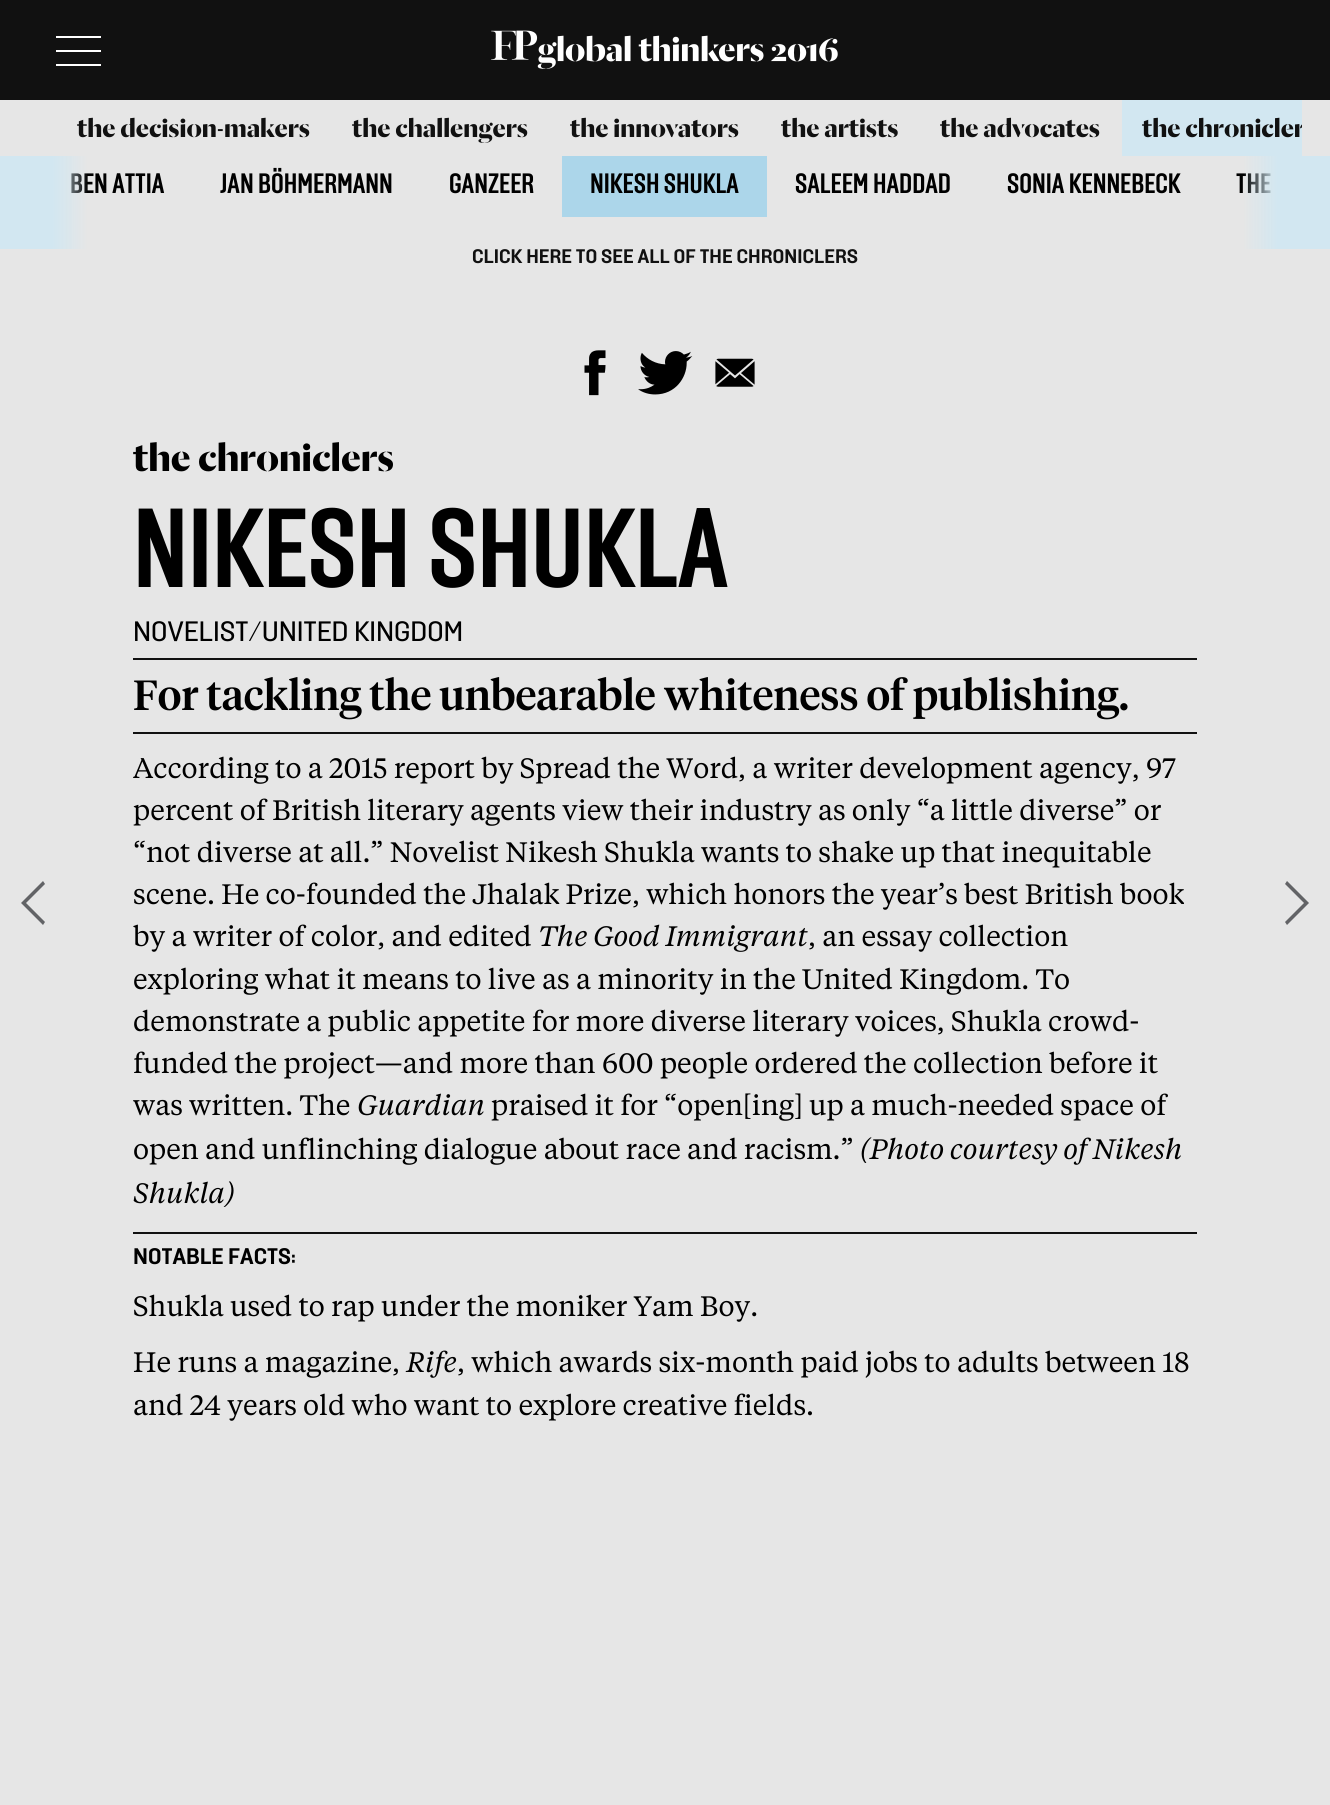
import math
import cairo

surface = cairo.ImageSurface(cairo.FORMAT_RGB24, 1330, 1805)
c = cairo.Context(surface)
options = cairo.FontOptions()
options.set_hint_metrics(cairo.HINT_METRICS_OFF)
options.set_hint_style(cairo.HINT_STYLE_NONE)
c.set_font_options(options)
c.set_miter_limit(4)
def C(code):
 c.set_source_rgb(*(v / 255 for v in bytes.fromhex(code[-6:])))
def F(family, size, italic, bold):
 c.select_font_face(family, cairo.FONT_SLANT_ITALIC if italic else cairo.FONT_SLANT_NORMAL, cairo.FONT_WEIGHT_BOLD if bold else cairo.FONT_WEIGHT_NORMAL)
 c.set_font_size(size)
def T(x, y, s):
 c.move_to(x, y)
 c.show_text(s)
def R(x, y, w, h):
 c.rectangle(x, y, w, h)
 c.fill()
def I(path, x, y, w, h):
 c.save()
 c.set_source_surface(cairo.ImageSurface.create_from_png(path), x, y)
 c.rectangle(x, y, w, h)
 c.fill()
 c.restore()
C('e6e6e6')
c.paint()
C('111111')
R(0,0,1330,100)
C('ffffff')
R(56,36,45,2)
R(56,50,45,2)
R(56,64,45,2)
I('1.png',491,30,347,39)
F('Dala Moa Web',28,0,1)
C('111111')
T(77,137,'the decision-makers')
T(352,137,'the challengers')
T(570,137,'the innovators')
T(781,137,'the artists')
T(940,137,'the advocates')
C('d2e7f1')
R(1122,100,180,56)
c.save()
c.rectangle(28,100,1274,56)
c.clip()
C('111111')
T(1142,137,'the chronicler')
c.restore()
F('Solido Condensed',28,0,1)
C('000000')
T(70,193,'BEN ATTIA')
gradient = cairo.LinearGradient(88,202,0,202)
gradient.add_color_stop_rgba(0,0.824,0.906,0.945,0)
gradient.add_color_stop_rgba(.4,0.824,0.906,0.945,1)
c.set_source(gradient)
R(0,156,87,93)
C('000000')
T(220,193,'JAN BÖHMERMANN')
T(449,193,'GANZEER')
C('acd6ea')
R(562,156,205,61)
C('000000')
T(590,193,'NIKESH SHUKLA')
T(795,193,'SALEEM HADDAD')
T(1007,193,'SONIA KENNEBECK')
T(1236,193,'THE')
gradient = cairo.LinearGradient(1243,202,1330,202)
gradient.add_color_stop_rgba(0,0.824,0.906,0.945,0)
gradient.add_color_stop_rgba(.4,0.824,0.906,0.945,1)
c.set_source(gradient)
R(1244,156,86,93)
F('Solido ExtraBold',19.6,0,0)
C('111111')
T(472,263,'CLICK HERE TO SEE ALL OF THE CHRONICLERS')
C('626366')
c.new_path()
c.move_to(45,922)
c.line_to(26,903)
c.line_to(45,884)
c.line_to(43,881)
c.line_to(21,903)
c.line_to(43,925)
c.close_path()
c.fill()
I('2.png',584,350,22,46)
I('3.png',638,351,55,44)
I('4.png',715,358,40,29)
F('Dala Moa Web',42,0,1)
C('000000')
T(133,471,'the chroniclers')
F('Solido Condensed',112,0,1)
T(133,587,'NIKESH SHUKLA')
F('Solido Medium',28,0,0)
T(133,641,'NOVELIST/UNITED KINGDOM')
C('111111')
R(133,658,1064,2)
R(133,732,1064,2)
F('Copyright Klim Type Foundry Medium',42,0,0)
C('000000')
T(133,710,'For tackling the unbearable whiteness of publishing.')
C('111111')
R(133,1232,1064,2)
F('Copyright Klim Type Foundry',28,0,0)
C('000000')
T(133,778,'According to a 2015 report by Spread the Word, a writer development agency, 97')
T(133,820,'percent of British literary agents view their industry as only “a little diverse” or')
T(133,862,'“not diverse at all.” Novelist Nikesh Shukla wants to shake up that inequitable')
T(133,904,'scene. He co-founded the Jhalak Prize, which honors the year’s best British book')
T(133,946,'by a writer of color, and edited')
F('Copyright Klim Type Foundry',28,1,0)
T(538,946,'The Good Immigrant')
F('Copyright Klim Type Foundry',28,0,0)
T(808,946,', an essay collection')
T(133,989,'exploring what it means to live as a minority in the United Kingdom. To')
T(133,1031,'demonstrate a public appetite for more diverse literary voices, Shukla crowd-')
T(133,1073,'funded the project—and more than 600 people ordered the collection before it')
T(133,1115,'was written. The')
F('Copyright Klim Type Foundry',28,1,0)
T(357,1115,'Guardian')
F('Copyright Klim Type Foundry',28,0,0)
T(491,1115,'praised it for “open[ing] up a much-needed space of')
T(133,1159,'open and unflinching dialogue about race and racism.”')
F('Copyright Klim Type Foundry',28,1,0)
T(860,1159,'(Photo courtesy of Nikesh')
T(133,1203,'Shukla)')
F('Solido ExtraBold',22.5,0,0)
T(133,1264,'NOTABLE FACTS:')
F('Copyright Klim Type Foundry',28,0,0)
T(133,1316,'Shukla used to rap under the moniker Yam Boy.')
T(133,1372,'He runs a magazine,')
F('Copyright Klim Type Foundry',28,1,0)
T(406,1372,'Rife')
F('Copyright Klim Type Foundry',28,0,0)
T(457,1372,', which awards six-month paid jobs to adults between 18')
T(133,1415,'and 24 years old who want to explore creative fields.')
C('626366')
c.new_path()
c.move_to(1285,884)
c.line_to(1304,903)
c.line_to(1285,922)
c.line_to(1287,925)
c.line_to(1309,903)
c.line_to(1287,881)
c.close_path()
c.fill()
surface.write_to_png('o.png')
